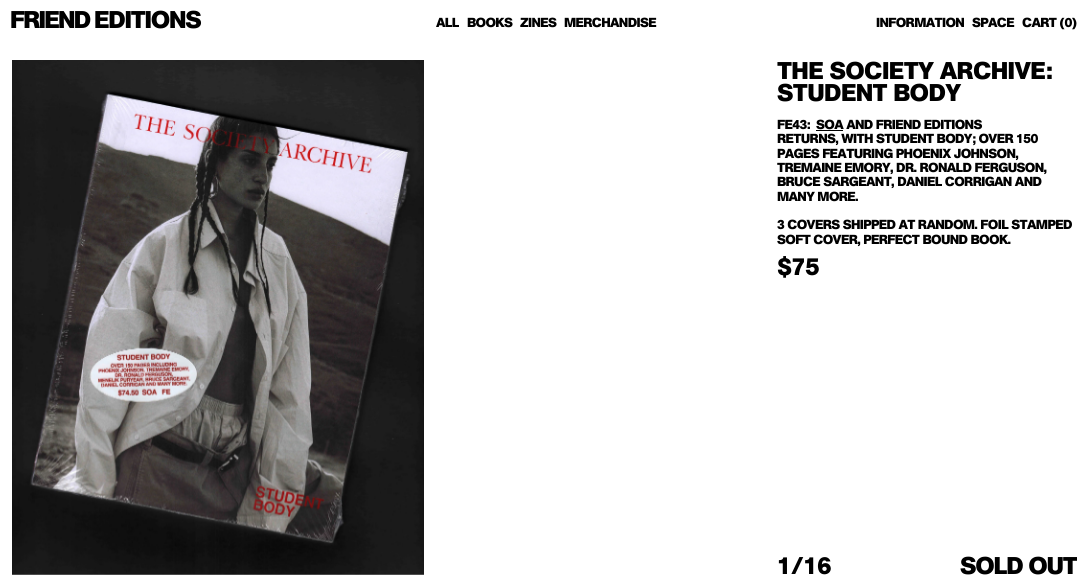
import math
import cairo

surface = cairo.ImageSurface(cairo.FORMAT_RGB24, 1089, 586)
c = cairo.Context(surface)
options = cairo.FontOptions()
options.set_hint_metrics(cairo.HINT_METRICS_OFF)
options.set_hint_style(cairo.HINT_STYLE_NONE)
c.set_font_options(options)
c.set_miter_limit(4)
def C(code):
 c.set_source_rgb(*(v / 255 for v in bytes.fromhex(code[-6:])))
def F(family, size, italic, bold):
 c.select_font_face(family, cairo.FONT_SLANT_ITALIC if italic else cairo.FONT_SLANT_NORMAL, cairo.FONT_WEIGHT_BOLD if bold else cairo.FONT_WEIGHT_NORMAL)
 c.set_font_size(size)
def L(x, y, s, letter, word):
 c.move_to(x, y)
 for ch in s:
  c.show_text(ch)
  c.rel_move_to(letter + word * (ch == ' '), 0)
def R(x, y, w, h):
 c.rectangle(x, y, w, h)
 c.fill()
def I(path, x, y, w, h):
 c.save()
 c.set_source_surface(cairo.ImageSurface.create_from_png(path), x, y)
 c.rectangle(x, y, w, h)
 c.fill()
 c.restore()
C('ffffff')
c.paint()
F('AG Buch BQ',24,0,1)
C('000000')
L(10,28,'FRIEND',-1.75,0)
L(94,28,'EDITIONS',-1.25,0)
F('AG Buch BQ',13,0,1)
L(436,27,'ALL',-.65,0)
L(467,27,'BOOKS',-.65,0)
L(520,27,'ZINES',-.65,0)
L(564,27,'MERCHANDISE',-.65,0)
L(876,27,'INFORMATION',-.65,0)
L(972,27,'SPACE',-.65,0)
L(1022,27,'CART (0)',-.65,0)
I('1.png',12,60,412,515)
F('AG Buch BQ',24,0,1)
L(777,79,'THE SOCIETY ARCHIVE:',-.65,0)
L(777,101,'STUDENT BODY',-.65,0)
F('AG Buch BQ',13,0,1)
L(777,129,'FE43:',-.65,0)
L(816,129,'SOA AND FRIEND EDITIONS',-.65,0)
R(816,130,27,1)
L(777,143,'RETURNS, WITH STUDENT BODY; OVER 150',-.65,0)
L(777,158,'PAGES FEATURING PHOENIX JOHNSON,',-.65,0)
L(777,172,'TREMAINE EMORY, DR. RONALD FERGUSON,',-.65,0)
L(777,186,'BRUCE SARGEANT, DANIEL CORRIGAN AND',-.65,0)
L(777,201,'MANY MORE.',-.65,0)
L(777,229,'3 COVERS SHIPPED AT RANDOM. FOIL STAMPED',-.65,0)
L(777,244,'SOFT COVER, PERFECT BOUND BOOK.',-.65,0)
F('AG Buch BQ',24,0,1)
L(777,275,'$75',-.65,0)
L(777,574,'1/16',-.65,0)
c.save()
c.rectangle(960,556,117,19)
c.clip()
L(960,574,'SOLD OUT',-1.25,0)
c.restore()
surface.write_to_png('o.png')
